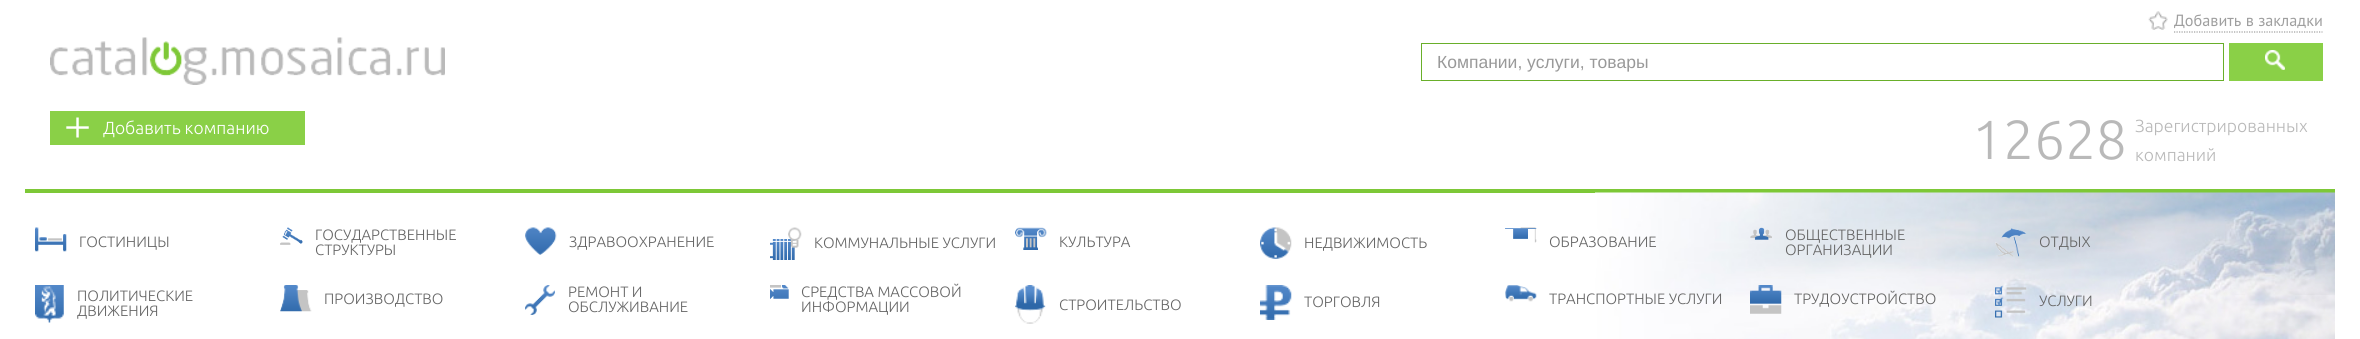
import math
import cairo

surface = cairo.ImageSurface(cairo.FORMAT_RGB24, 2360, 339)
c = cairo.Context(surface)
options = cairo.FontOptions()
options.set_hint_metrics(cairo.HINT_METRICS_OFF)
options.set_hint_style(cairo.HINT_STYLE_NONE)
c.set_font_options(options)
c.set_miter_limit(4)
def C(code):
 c.set_source_rgb(*(v / 255 for v in bytes.fromhex(code[-6:])))
def F(family, size, italic, bold):
 c.select_font_face(family, cairo.FONT_SLANT_ITALIC if italic else cairo.FONT_SLANT_NORMAL, cairo.FONT_WEIGHT_BOLD if bold else cairo.FONT_WEIGHT_NORMAL)
 c.set_font_size(size)
def T(x, y, s):
 c.move_to(x, y)
 c.show_text(s)
def R(x, y, w, h):
 c.rectangle(x, y, w, h)
 c.fill()
def I(path, x, y, w, h):
 c.save()
 c.set_source_surface(cairo.ImageSurface.create_from_png(path), x, y)
 c.rectangle(x, y, w, h)
 c.fill()
 c.restore()
C('ffffff')
c.paint()
C('7dc837')
R(25,189,2310,4)
I('1.png',50,37,395,48)
C('8ad047')
R(50,111,255,34)
I('2.png',66,117,23,21)
F('Ubuntu Light',17.5,0,0)
C('ffffff')
T(103,134,'Добавить компанию')
c.new_path()
c.move_to(2174,32)
c.line_to(2322.5,32)
C('9f9f9f')
c.set_line_width(1.2)
c.set_dash([1.25,1.25])
c.stroke()
I('3.png',2148,11,20,19)
F('PT Sans',16.25,0,0)
T(2174,26,'Добавить в закладки')
c.rectangle(1421.5,43.5,802,37)
C('69af2a')
c.set_line_width(1)
c.set_dash([])
c.stroke()
F('Liberation Sans',17.5,0,0)
C('999999')
T(1437,68,'Компании, услуги, товары')
C('8ad047')
R(2229,43,94,38)
I('4.png',2265,50,20,20)
F('Ubuntu Light',55,0,0)
C('b9b9b9')
T(1972,159,'12628')
F('Ubuntu Light',17.5,0,0)
T(2135,132,'Зарегистрированных')
T(2135,161,'компаний')
I('5.png',1595,192,740,147)
I('6.png',35,227,32,25)
F('Ubuntu Light',15,0,0)
C('666666')
T(79,247,'ГОСТИНИЦЫ')
I('7.png',280,227,23,18)
T(315,240,'ГОСУДАРСТВЕННЫЕ')
T(315,255,'СТРУКТУРЫ')
I('8.png',525,227,32,28)
T(569,247,'ЗДРАВООХРАНЕНИЕ')
I('9.png',770,227,32,33)
T(814,248,'КОММУНАЛЬНЫЕ УСЛУГИ')
I('10.png',1015,227,32,23)
T(1059,247,'КУЛЬТУРА')
I('11.png',1260,227,32,32)
T(1304,248,'НЕДВИЖИМОСТЬ')
I('12.png',1505,227,32,16)
T(1549,247,'ОБРАЗОВАНИЕ')
I('13.png',1750,227,22,13)
T(1785,240,'ОБЩЕСТВЕННЫЕ')
T(1785,255,'ОРГАНИЗАЦИИ')
I('14.png',1995,228,32,29)
T(2039,247,'ОТДЫХ')
I('15.png',35,285,29,38)
T(77,301,'ПОЛИТИЧЕСКИЕ')
T(77,316,'ДВИЖЕНИЯ')
I('16.png',280,285,32,27)
T(324,304,'ПРОИЗВОДСТВО')
I('17.png',525,285,30,30)
T(568,297,'РЕМОНТ И')
T(568,312,'ОБСЛУЖИВАНИЕ')
I('18.png',770,285,19,14)
T(801,297,'СРЕДСТВА МАССОВОЙ')
T(801,312,'ИНФОРМАЦИИ')
I('19.png',1015,285,31,39)
T(1059,310,'СТРОИТЕЛЬСТВО')
I('20.png',1260,285,32,35)
T(1304,307,'ТОРГОВЛЯ')
I('21.png',1505,285,32,17)
T(1549,304,'ТРАНСПОРТНЫЕ УСЛУГИ')
I('22.png',1750,285,32,29)
T(1794,304,'ТРУДОУСТРОЙСТВО')
I('23.png',1995,285,32,33)
T(2039,306,'УСЛУГИ')
surface.write_to_png('o.png')
